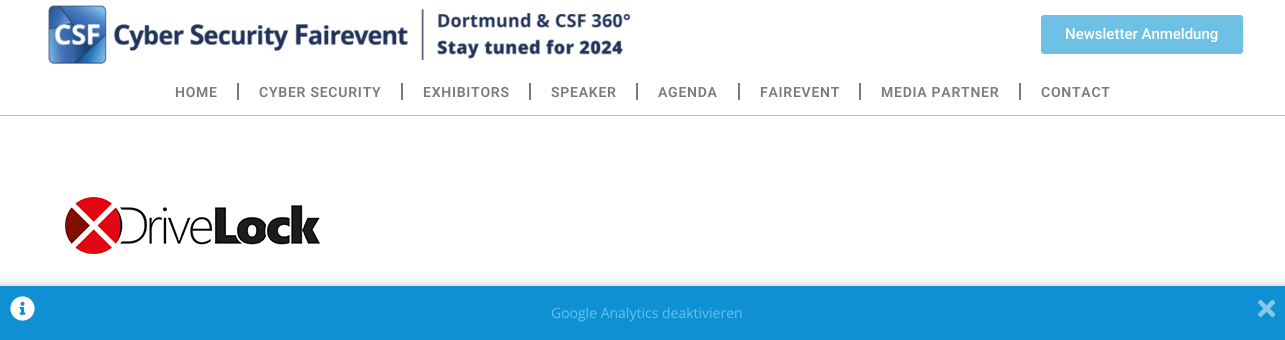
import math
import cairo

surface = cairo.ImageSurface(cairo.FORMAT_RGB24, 1285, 340)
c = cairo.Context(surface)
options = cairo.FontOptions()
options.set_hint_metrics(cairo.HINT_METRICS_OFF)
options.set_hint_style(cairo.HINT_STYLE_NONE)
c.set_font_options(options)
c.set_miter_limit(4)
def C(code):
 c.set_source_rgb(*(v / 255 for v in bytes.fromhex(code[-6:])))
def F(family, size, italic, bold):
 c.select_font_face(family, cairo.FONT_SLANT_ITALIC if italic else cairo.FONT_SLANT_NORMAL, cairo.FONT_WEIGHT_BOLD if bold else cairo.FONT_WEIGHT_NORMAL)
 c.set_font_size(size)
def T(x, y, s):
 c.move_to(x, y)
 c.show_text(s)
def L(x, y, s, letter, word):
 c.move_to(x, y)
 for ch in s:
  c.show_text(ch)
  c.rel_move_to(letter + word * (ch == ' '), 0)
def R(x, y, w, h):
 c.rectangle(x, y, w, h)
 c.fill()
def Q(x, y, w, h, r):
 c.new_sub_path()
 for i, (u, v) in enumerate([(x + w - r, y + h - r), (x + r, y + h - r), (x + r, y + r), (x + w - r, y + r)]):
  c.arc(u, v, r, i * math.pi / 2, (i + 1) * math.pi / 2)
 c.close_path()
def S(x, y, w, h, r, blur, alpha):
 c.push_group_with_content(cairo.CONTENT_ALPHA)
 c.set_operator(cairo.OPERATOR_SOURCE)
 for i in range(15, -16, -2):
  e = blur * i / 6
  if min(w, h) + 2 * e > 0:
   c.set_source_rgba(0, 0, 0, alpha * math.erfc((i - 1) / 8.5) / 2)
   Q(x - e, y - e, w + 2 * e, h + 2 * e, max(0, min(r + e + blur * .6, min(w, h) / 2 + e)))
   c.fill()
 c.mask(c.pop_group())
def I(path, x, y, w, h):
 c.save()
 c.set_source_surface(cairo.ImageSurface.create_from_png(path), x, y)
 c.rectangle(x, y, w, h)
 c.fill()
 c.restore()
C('ffffff')
c.paint()
C('bfbfbf')
R(0,115,1285,1)
I('1.png',48,5,583,59)
C('6ec1e4')
Q(1041,15,202,39,3)
c.fill()
F('Roboto Medium',15,0,0)
C('ffffff')
T(1065,39,'Newsletter Anmeldung')
F('Roboto SemiBold',14,0,0)
C('7a7a7a')
L(175,97,'HOME',.75,0)
R(237,83,2,17)
L(259,97,'CYBER SECURITY',.75,0)
R(401,83,2,17)
L(423,97,'EXHIBITORS',.75,0)
R(529,83,2,17)
L(551,97,'SPEAKER',.75,0)
R(636,83,2,17)
L(658,97,'AGENDA',.75,0)
R(738,83,2,17)
L(760,97,'FAIREVENT',.75,0)
R(859,83,2,17)
L(881,97,'MEDIA PARTNER',.75,0)
R(1019,83,2,17)
L(1041,97,'CONTACT',.75,0)
I('2.png',65,197,255,57)
C('000000')
S(0,290,1285,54,0,7.5,.4)
C('0e90d2')
R(0,286,1285,54)
I('3.png',10,296,25,25)
F('Open Sans',14,0,0)
C('67c2f0')
T(551,318,'Google Analytics deaktivieren')
I('4.png',1258,299,17,18)
surface.write_to_png('o.png')
